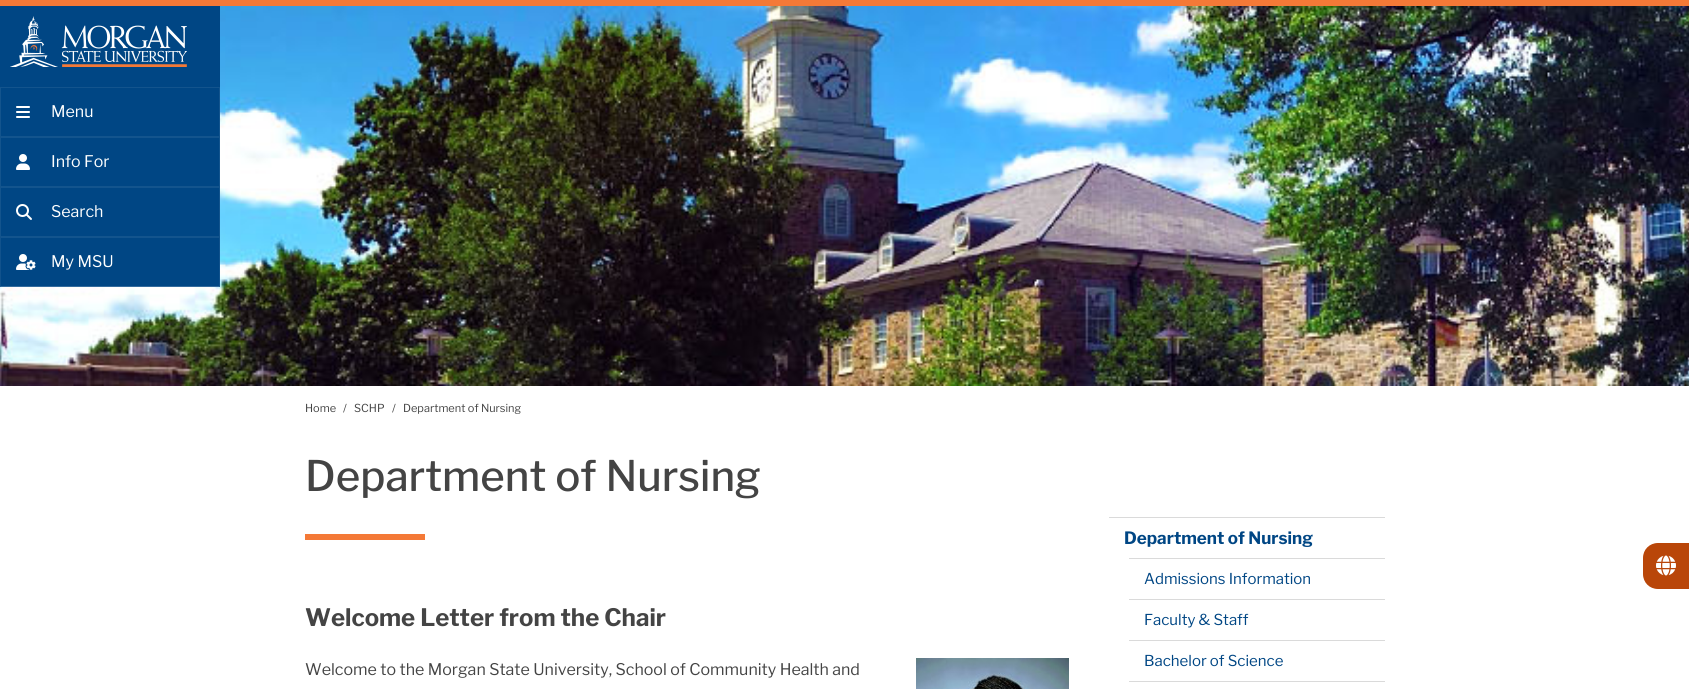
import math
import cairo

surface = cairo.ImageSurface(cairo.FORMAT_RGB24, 1689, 689)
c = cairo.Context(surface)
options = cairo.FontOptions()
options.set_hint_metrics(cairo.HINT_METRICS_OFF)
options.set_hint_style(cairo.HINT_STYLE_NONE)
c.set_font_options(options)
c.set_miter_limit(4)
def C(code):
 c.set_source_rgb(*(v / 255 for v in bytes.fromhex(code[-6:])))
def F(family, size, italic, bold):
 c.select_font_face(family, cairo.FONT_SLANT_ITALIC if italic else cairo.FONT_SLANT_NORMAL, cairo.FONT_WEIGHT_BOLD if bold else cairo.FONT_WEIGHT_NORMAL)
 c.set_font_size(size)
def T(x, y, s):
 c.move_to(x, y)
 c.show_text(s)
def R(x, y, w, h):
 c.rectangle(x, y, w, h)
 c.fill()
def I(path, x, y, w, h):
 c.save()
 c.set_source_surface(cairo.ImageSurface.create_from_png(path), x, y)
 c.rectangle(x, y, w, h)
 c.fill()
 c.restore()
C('ffffff')
c.paint()
C('f47937')
R(0,0,1689,6)
I('6.png',0,6,1689,380)
C('004684')
R(0,6,220,281)
I('1.png',10,16,177,51)
c.rectangle(.5,87.5,219,49)
C('13548d')
c.set_line_width(1)
c.stroke()
I('2.png',16,106,14,12)
F('Libre Franklin',16,0,0)
C('ffffff')
T(51,117,'Menu')
c.rectangle(.5,137.5,219,49)
C('13548d')
c.stroke()
I('3.png',16,154,14,16)
C('ffffff')
T(51,167,'Info For')
c.rectangle(.5,187.5,219,49)
C('13548d')
c.stroke()
I('4.png',16,204,16,16)
C('ffffff')
T(51,217,'Search')
C('13548d')
c.new_path()
c.move_to(0,237)
c.line_to(220,237)
c.line_to(219,238)
c.line_to(1,238)
c.close_path()
c.fill()
c.set_source_rgba(1,1,1,0.07)
c.new_path()
c.move_to(220,237)
c.line_to(220,287)
c.line_to(219,286)
c.line_to(219,238)
c.close_path()
c.fill()
c.set_source_rgba(1,1,1,0.2)
c.new_path()
c.move_to(220,287)
c.line_to(0,287)
c.line_to(1,286)
c.line_to(219,286)
c.close_path()
c.fill()
c.set_source_rgba(1,1,1,0.07)
c.new_path()
c.move_to(0,287)
c.line_to(0,237)
c.line_to(1,238)
c.line_to(1,286)
c.close_path()
c.fill()
I('5.png',16,254,20,16)
C('ffffff')
T(51,267,'My MSU')
F('Libre Franklin',11,0,0)
C('444444')
T(305,412,'Home')
T(343,412,'/')
T(354,412,'SCHP')
T(392,412,'/')
T(403,412,'Department of Nursing')
F('Libre Franklin Medium',42,0,0)
T(305,491,'Department of Nursing')
C('f47937')
R(305,534,120,6)
F('Libre Franklin',24,0,1)
C('444444')
T(305,626,'Welcome Letter from the Chair')
F('Libre Franklin',16,0,0)
T(305,675,'Welcome to the Morgan State University, School of Community Health and')
I('7.png',916,658,153,31)
C('dadada')
R(1109,517,276,1)
F('Libre Franklin',17,0,1)
C('004684')
T(1124,544,'Department of Nursing')
C('dadada')
R(1129,558,256,1)
F('Libre Franklin',15,0,0)
C('004684')
T(1144,584,'Admissions Information')
C('dadada')
R(1129,599,256,1)
C('004684')
T(1144,625,'Faculty & Staff')
C('dadada')
R(1129,640,256,1)
C('004684')
T(1144,666,'Bachelor of Science')
C('dadada')
R(1129,681,256,1)
C('b94609')
c.new_path()
c.move_to(1658,543)
c.line_to(1689,543)
c.line_to(1689,589)
c.line_to(1658,589)
c.curve_to(1649.5,589,1643,582.5,1643,574)
c.line_to(1643,558)
c.curve_to(1643,549.5,1649.5,543,1658,543)
c.close_path()
c.fill()
I('8.png',1656,555,20,21)
surface.write_to_png('o.png')
